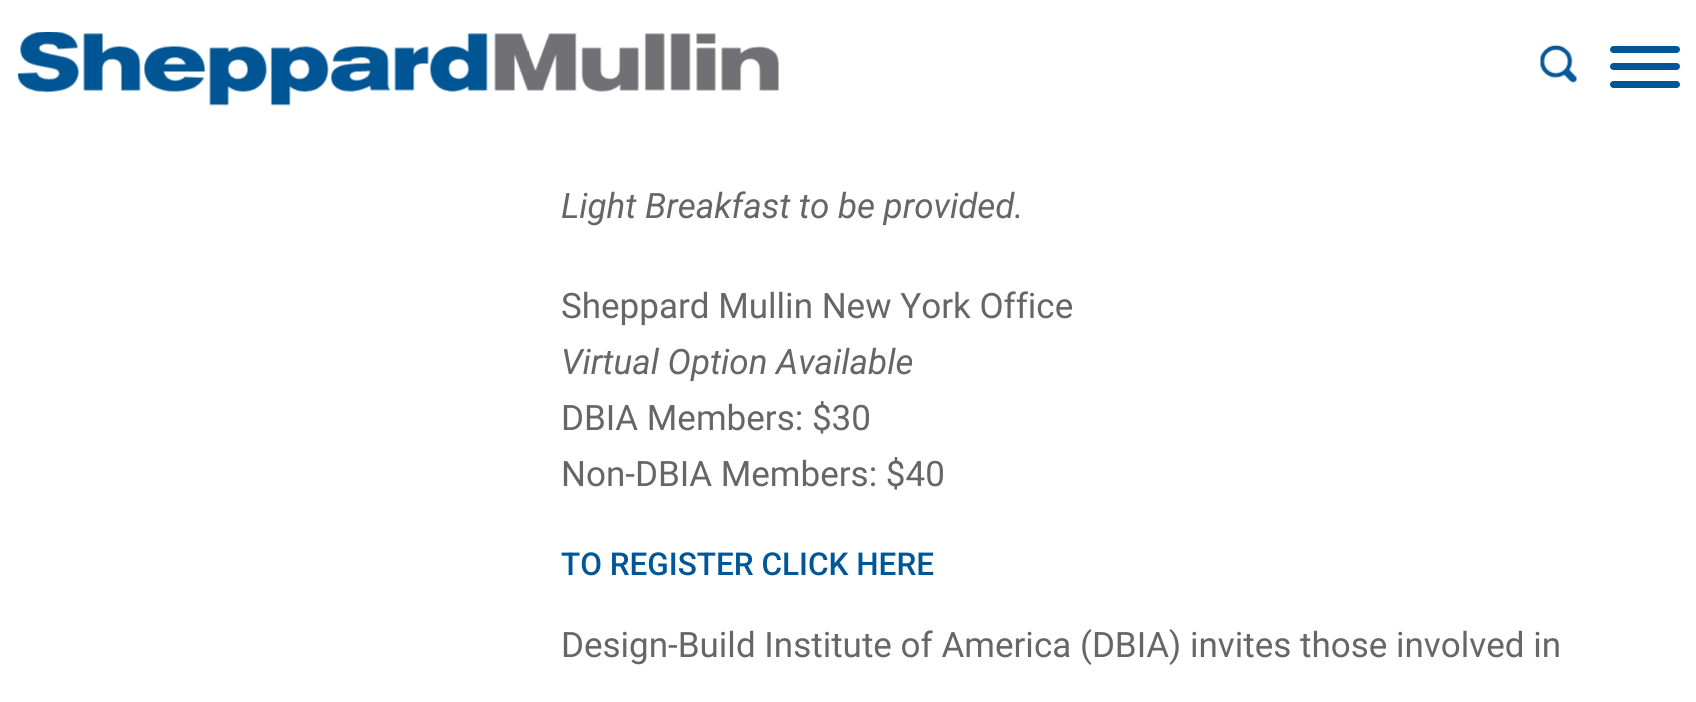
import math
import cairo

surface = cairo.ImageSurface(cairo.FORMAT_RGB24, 1696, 702)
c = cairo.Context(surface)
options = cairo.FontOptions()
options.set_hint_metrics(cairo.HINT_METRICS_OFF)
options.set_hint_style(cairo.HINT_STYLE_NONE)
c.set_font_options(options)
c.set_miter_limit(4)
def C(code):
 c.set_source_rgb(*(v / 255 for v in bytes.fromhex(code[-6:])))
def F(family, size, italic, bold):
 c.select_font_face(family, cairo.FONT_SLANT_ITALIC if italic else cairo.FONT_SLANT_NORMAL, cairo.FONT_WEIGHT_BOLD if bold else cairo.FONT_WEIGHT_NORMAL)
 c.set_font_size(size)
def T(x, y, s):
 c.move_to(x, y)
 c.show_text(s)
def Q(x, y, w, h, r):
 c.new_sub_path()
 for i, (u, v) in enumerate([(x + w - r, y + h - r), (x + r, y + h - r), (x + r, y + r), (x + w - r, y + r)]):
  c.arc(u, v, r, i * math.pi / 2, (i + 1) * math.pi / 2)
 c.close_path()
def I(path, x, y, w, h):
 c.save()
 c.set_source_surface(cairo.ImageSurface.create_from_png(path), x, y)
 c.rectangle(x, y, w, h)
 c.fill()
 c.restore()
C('ffffff')
c.paint()
I('1.png',18,32,761,74)
I('2.png',1540,45,37,38)
C('005695')
Q(1610,46,70,7,3.5)
c.fill()
Q(1610,63,70,7,3.5)
c.fill()
Q(1610,81,70,7,3.5)
c.fill()
F('Roboto',35,1,0)
C('666666')
T(561,218,'Light Breakfast to be provided.')
F('Roboto',35,0,0)
T(561,318,'Sheppard Mullin New York Office')
F('Roboto',35,1,0)
T(561,374,'Virtual Option Available')
F('Roboto',35,0,0)
T(561,430,'DBIA Members: $30')
T(561,486,'Non-DBIA Members: $40')
F('Roboto Medium',31.5,0,0)
C('005696')
T(561,575,'TO REGISTER CLICK HERE')
F('Roboto',35,0,0)
C('666666')
T(561,657,'Design-Build Institute of America (DBIA) invites those involved in')
surface.write_to_png('o.png')
